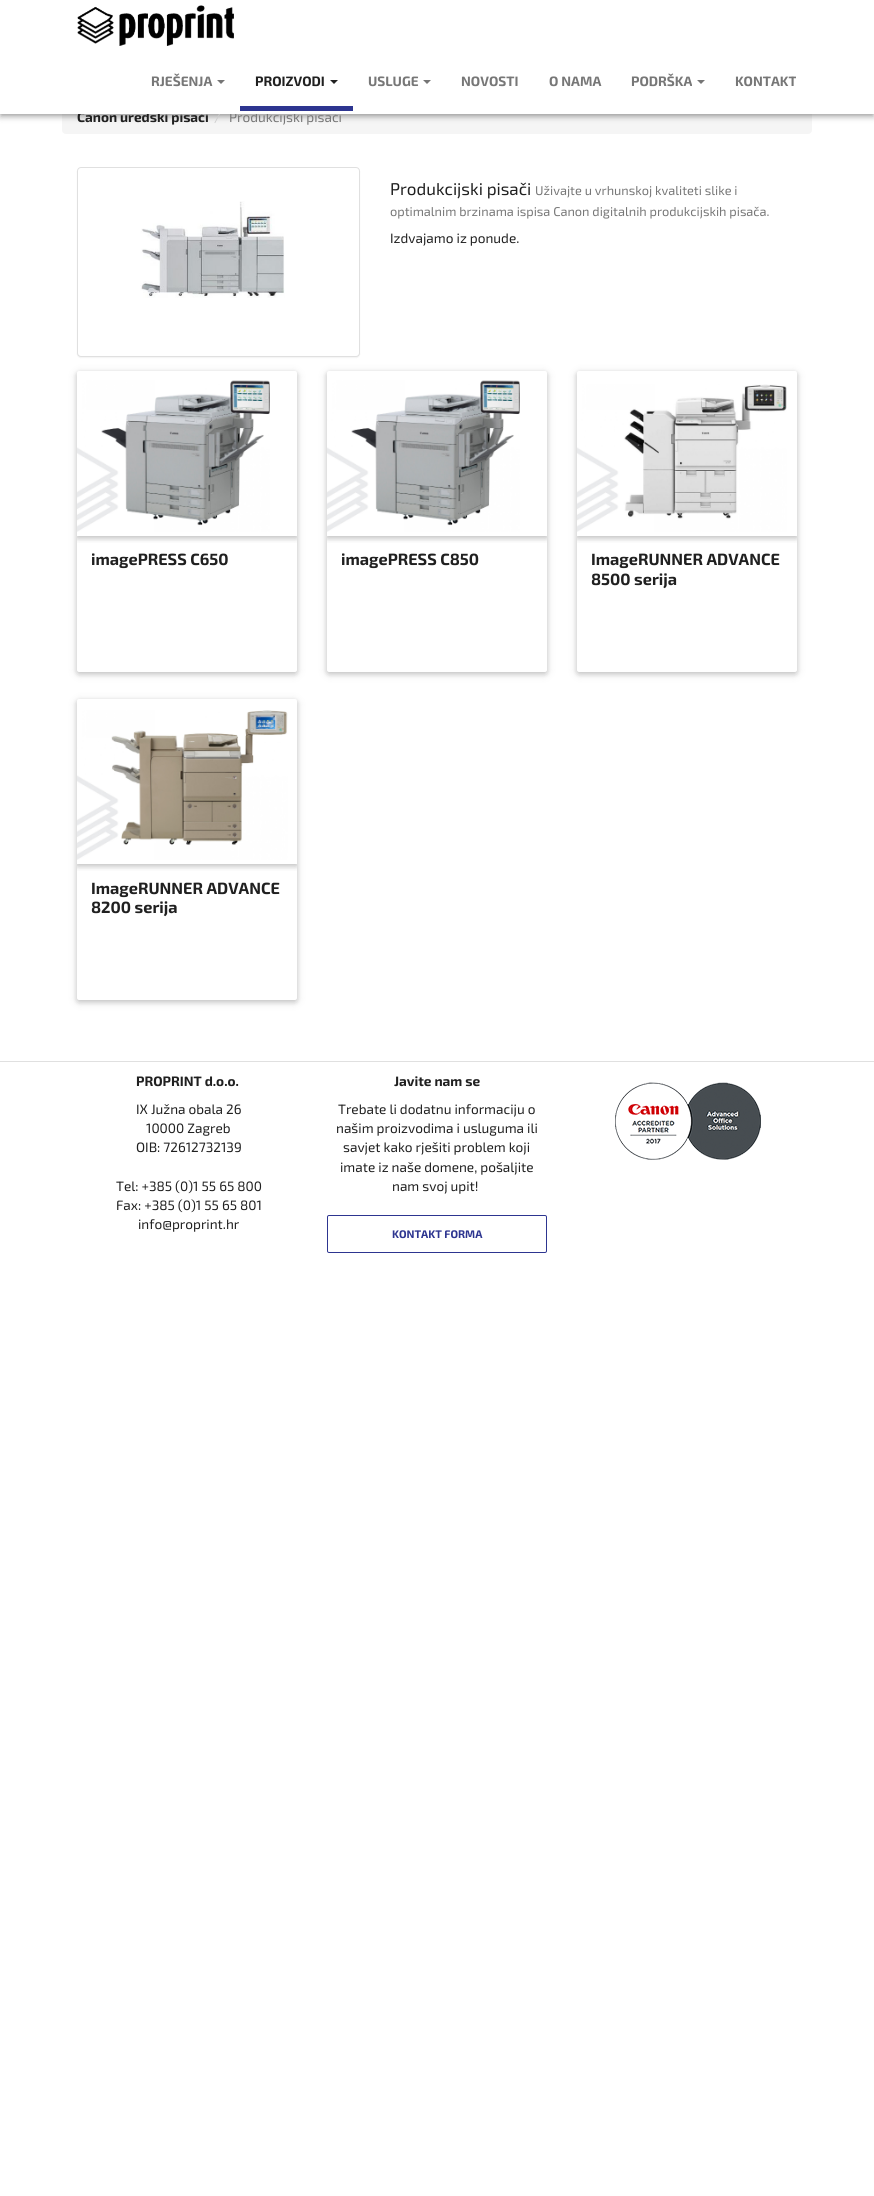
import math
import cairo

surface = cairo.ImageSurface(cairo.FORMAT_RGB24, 874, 2196)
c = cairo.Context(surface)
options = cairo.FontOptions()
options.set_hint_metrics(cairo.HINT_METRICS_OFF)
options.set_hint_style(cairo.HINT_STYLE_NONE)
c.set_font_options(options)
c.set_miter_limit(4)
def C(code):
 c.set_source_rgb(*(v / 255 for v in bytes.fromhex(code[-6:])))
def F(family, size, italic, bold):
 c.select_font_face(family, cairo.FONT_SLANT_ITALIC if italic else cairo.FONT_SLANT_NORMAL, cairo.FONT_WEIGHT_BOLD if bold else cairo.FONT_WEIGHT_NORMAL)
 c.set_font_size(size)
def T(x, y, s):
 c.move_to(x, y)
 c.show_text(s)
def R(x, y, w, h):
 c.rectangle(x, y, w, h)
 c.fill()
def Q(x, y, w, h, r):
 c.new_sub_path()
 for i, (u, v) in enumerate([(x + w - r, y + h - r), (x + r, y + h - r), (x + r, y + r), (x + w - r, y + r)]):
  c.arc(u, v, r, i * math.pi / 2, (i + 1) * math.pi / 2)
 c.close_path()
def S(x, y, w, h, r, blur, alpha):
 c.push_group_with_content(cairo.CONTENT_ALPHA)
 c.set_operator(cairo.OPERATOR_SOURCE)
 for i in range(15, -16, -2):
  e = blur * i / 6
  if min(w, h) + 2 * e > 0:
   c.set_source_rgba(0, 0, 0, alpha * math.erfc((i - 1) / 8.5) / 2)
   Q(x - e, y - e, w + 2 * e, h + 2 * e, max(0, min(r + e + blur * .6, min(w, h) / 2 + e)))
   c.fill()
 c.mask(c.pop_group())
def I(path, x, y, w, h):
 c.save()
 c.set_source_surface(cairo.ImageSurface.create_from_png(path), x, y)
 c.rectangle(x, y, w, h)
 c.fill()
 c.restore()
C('ffffff')
c.paint()
C('f5f5f5')
Q(62,100,750,34,4)
c.fill()
C('000000')
S(0,1,874,114,0,5,.12)
S(0,4,874,114,0,2.5,.14)
S(1,3,872,112,0,2,.2)
F('Exo 2',13.6,0,1)
C('202020')
T(77,122,'Canon uredski pisači')
F('Exo 2',13.6,0,0)
C('cccccc')
T(214,122,'/')
C('777777')
T(229,122,'Produkcijski pisači')
C('ffffff')
R(0,0,874,114)
I('1.png',77,5,157,41)
F('Exo 2',13.6,0,1)
C('777777')
T(151,86,'RJEŠENJA')
C('757575')
c.new_path()
c.move_to(217,80)
c.line_to(225,80)
c.line_to(221,84)
c.close_path()
c.fill()
C('2d3590')
R(240,106,113,5)
C('202020')
T(255,86,'PROIZVODI')
C('212121')
c.new_path()
c.move_to(330,80)
c.line_to(338,80)
c.line_to(334,84)
c.close_path()
c.fill()
C('777777')
T(368,86,'USLUGE')
C('757575')
c.new_path()
c.move_to(423,80)
c.line_to(431,80)
c.line_to(427,84)
c.close_path()
c.fill()
C('777777')
T(461,86,'NOVOSTI')
T(549,86,'O NAMA')
T(631,86,'PODRŠKA')
C('757575')
c.new_path()
c.move_to(697,80)
c.line_to(705,80)
c.line_to(701,84)
c.close_path()
c.fill()
C('777777')
T(735,86,'KONTAKT')
C('000000')
S(77,168,283,190,4,.5,.05)
C('ffffff')
Q(77.5,167.5,282,189,3.5)
c.fill_preserve()
C('e0e0e0')
c.set_line_width(1)
c.stroke()
I('2.png',140,201,145,97)
F('Exo 2',17,0,0)
C('202020')
T(390,195,'Produkcijski pisači')
F('Exo 2',12.75,0,0)
C('777777')
T(535,195,'Uživajte u vrhunskoj kvaliteti slike i')
T(390,216,'optimalnim brzinama ispisa Canon digitalnih produkcijskih pisača.')
F('Exo 2',13.6,0,0)
C('202020')
T(390,243,'Izdvajamo iz ponude.')
C('000000')
S(77,373,220,301,2,5,.12)
S(77,373,220,301,2,2.5,.16)
C('ffffff')
Q(77,371,220,301,2)
c.fill()
c.save()
Q(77,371,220,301,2)
c.clip()
c.rectangle(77,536,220,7)
c.clip()
C('000000')
S(77,373,220,165,0,5,.12)
c.restore()
c.save()
Q(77,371,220,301,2)
c.clip()
c.rectangle(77,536,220,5)
c.clip()
C('000000')
S(77,373,220,165,0,2.5,.16)
c.restore()
I('3.png',77,380,193,152)
F('Exo 2',16.25,0,1)
C('202020')
T(91,565,'imagePRESS C650')
C('000000')
S(327,373,220,301,2,5,.12)
S(327,373,220,301,2,2.5,.16)
C('ffffff')
Q(327,371,220,301,2)
c.fill()
c.save()
Q(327,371,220,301,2)
c.clip()
c.rectangle(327,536,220,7)
c.clip()
C('000000')
S(327,373,220,165,0,5,.12)
c.restore()
c.save()
Q(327,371,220,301,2)
c.clip()
c.rectangle(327,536,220,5)
c.clip()
C('000000')
S(327,373,220,165,0,2.5,.16)
c.restore()
I('4.png',327,380,193,152)
C('202020')
T(341,565,'imagePRESS C850')
C('000000')
S(577,373,220,301,2,5,.12)
S(577,373,220,301,2,2.5,.16)
C('ffffff')
Q(577,371,220,301,2)
c.fill()
c.save()
Q(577,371,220,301,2)
c.clip()
c.rectangle(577,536,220,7)
c.clip()
C('000000')
S(577,373,220,165,0,5,.12)
c.restore()
c.save()
Q(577,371,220,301,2)
c.clip()
c.rectangle(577,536,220,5)
c.clip()
C('000000')
S(577,373,220,165,0,2.5,.16)
c.restore()
I('5.png',577,384,210,148)
C('202020')
T(591,565,'ImageRUNNER ADVANCE')
T(591,585,'8500 serija')
C('000000')
S(77,701,220,301,2,5,.12)
S(77,701,220,301,2,2.5,.16)
C('ffffff')
Q(77,699,220,301,2)
c.fill()
c.save()
Q(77,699,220,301,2)
c.clip()
c.rectangle(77,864,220,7)
c.clip()
C('000000')
S(77,701,220,165,0,5,.12)
c.restore()
c.save()
Q(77,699,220,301,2)
c.clip()
c.rectangle(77,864,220,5)
c.clip()
C('000000')
S(77,701,220,165,0,2.5,.16)
c.restore()
I('6.png',77,710,211,150)
C('202020')
T(91,894,'ImageRUNNER ADVANCE')
T(91,913,'8200 serija')
C('e0e0e0')
R(0,1061,874,1)
F('Exo 2',13.6,0,1)
C('202020')
T(136,1086,'PROPRINT d.o.o.')
F('Exo 2',13.6,0,0)
T(136,1114,'IX Južna obala 26')
T(146,1133,'10000 Zagreb')
T(136,1152,'OIB: 72612732139')
T(116,1191,'Tel: +385 (0)1 55 65 800')
T(116,1210,'Fax: +385 (0)1 55 65 801')
T(138,1229,'info@proprint.hr')
F('Exo 2',13.6,0,1)
T(394,1086,'Javite nam se')
F('Exo 2',13.6,0,0)
T(338,1114,'Trebate li dodatnu informaciju o')
T(336,1133,'našim proizvodima i usluguma ili')
T(343,1152,'savjet kako rješiti problem koji')
T(340,1172,'imate iz naše domene, pošaljite')
T(392,1191,'nam svoj upit!')
Q(327.5,1215.5,219,37,1.5)
C('2d3590')
c.stroke()
F('Exo 2',11,0,1)
T(392,1238,'KONTAKT FORMA')
I('7.png',615,1082,146,78)
surface.write_to_png('o.png')
